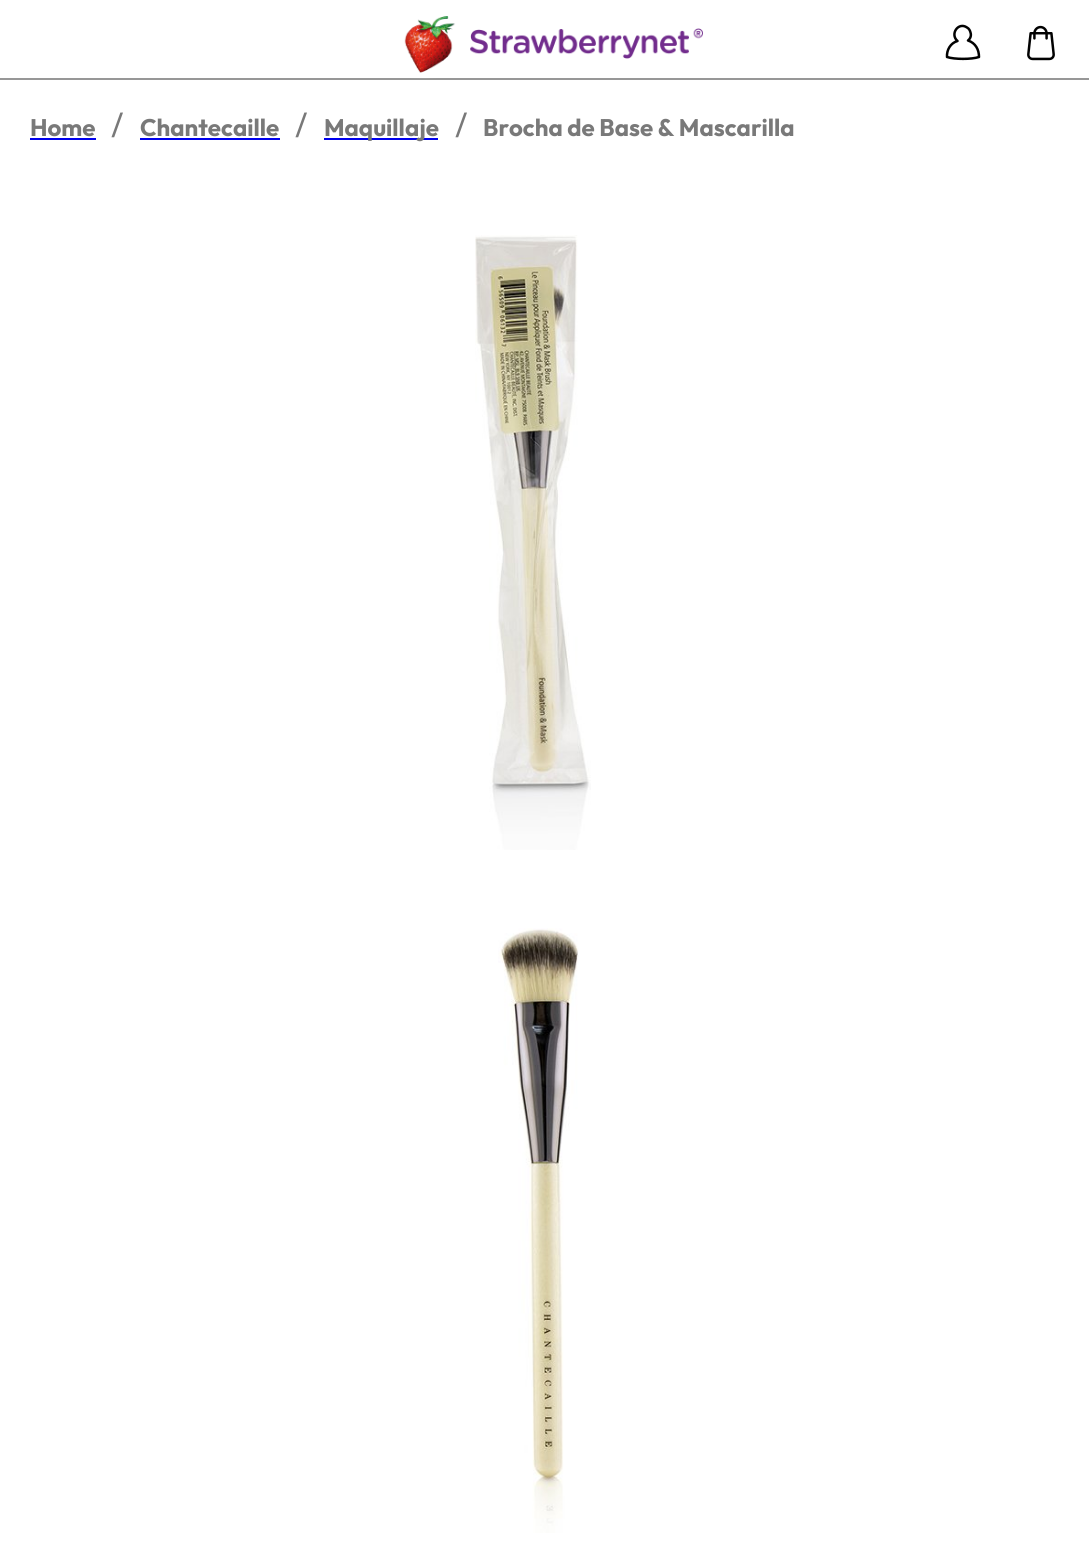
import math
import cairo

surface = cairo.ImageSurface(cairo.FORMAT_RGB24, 1089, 1552)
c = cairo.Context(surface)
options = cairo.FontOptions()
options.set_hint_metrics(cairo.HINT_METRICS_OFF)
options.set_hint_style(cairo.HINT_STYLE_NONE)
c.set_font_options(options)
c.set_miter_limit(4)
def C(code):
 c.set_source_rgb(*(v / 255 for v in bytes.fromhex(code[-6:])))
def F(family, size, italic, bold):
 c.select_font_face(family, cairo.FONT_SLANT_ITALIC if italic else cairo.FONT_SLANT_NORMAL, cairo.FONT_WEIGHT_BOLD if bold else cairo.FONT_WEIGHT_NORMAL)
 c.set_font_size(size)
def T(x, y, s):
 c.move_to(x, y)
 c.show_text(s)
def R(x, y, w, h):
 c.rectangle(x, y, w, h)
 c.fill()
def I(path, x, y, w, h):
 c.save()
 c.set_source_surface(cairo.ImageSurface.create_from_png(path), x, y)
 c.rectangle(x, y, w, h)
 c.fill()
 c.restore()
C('ffffff')
c.paint()
C('979797')
R(0,78,1089,2)
I('1.png',404,16,299,63)
c.new_path()
c.move_to(968,40.5)
c.curve_to(970.5,38.5,971.5,35.5,970.5,32.5)
c.curve_to(970,30.5,969,28.5,967,27.5)
c.curve_to(958.5,21.5,949.5,34,957.5,41)
c.curve_to(950.5,43,946.5,50,947,57)
c.curve_to(954.5,59.5,971.5,59.5,979,57)
c.curve_to(979,49.5,975.5,43,968,40.5)
c.close_path()
C('020202')
c.set_line_width(2.5)
c.set_line_cap(cairo.LINE_CAP_ROUND)
c.set_line_join(cairo.LINE_JOIN_ROUND)
c.stroke()
I('2.png',1027,25,28,36)
F('Outfit',24,0,1)
C('797979')
T(30,136,'Home')
C('0000ee')
R(30,138,66,2)
F('Outfit',32,0,0)
C('797979')
T(111,136,'/')
F('Outfit',24,0,1)
T(140,136,'Chantecaille')
C('0000ee')
R(140,138,140,2)
F('Outfit',32,0,0)
C('797979')
T(295,136,'/')
C('0000ee')
R(324,138,114,2)
F('Outfit',24,0,1)
C('797979')
T(324,136,'Maquillaje')
F('Outfit',32,0,0)
T(455,136,'/')
F('Outfit',24,0,1)
T(483,136,'Brocha de Base & Mascarilla')
I('3.png',475,235,116,615)
I('4.png',498,928,81,605)
surface.write_to_png('o.png')
